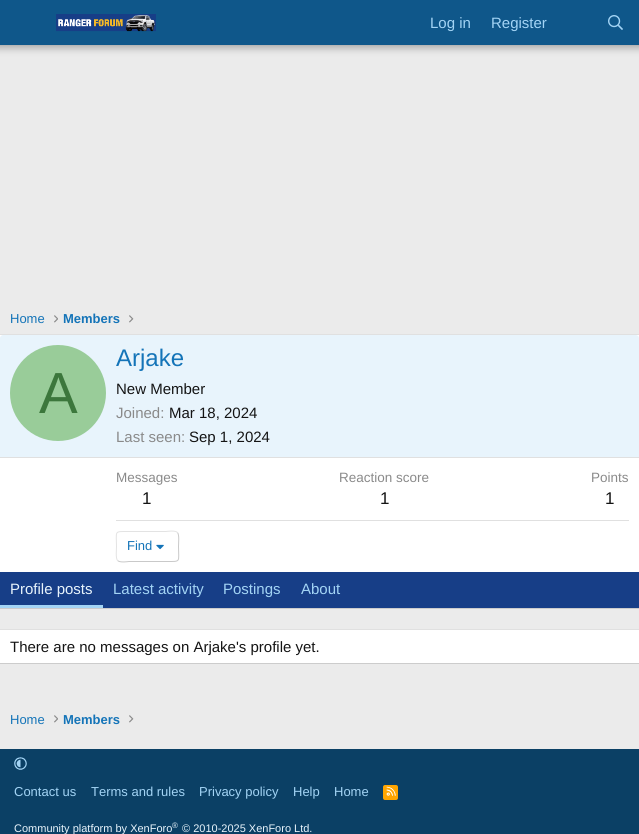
import math
import cairo

surface = cairo.ImageSurface(cairo.FORMAT_RGB24, 639, 834)
c = cairo.Context(surface)
options = cairo.FontOptions()
options.set_hint_metrics(cairo.HINT_METRICS_OFF)
options.set_hint_style(cairo.HINT_STYLE_NONE)
c.set_font_options(options)
c.set_miter_limit(4)
def C(code):
 c.set_source_rgb(*(v / 255 for v in bytes.fromhex(code[-6:])))
def F(family, size, italic, bold):
 c.select_font_face(family, cairo.FONT_SLANT_ITALIC if italic else cairo.FONT_SLANT_NORMAL, cairo.FONT_WEIGHT_BOLD if bold else cairo.FONT_WEIGHT_NORMAL)
 c.set_font_size(size)
def T(x, y, s):
 c.move_to(x, y)
 c.show_text(s)
def R(x, y, w, h):
 c.rectangle(x, y, w, h)
 c.fill()
def Q(x, y, w, h, r):
 c.new_sub_path()
 for i, (u, v) in enumerate([(x + w - r, y + h - r), (x + r, y + h - r), (x + r, y + r), (x + w - r, y + r)]):
  c.arc(u, v, r, i * math.pi / 2, (i + 1) * math.pi / 2)
 c.close_path()
def S(x, y, w, h, r, blur, alpha):
 c.push_group_with_content(cairo.CONTENT_ALPHA)
 c.set_operator(cairo.OPERATOR_SOURCE)
 for i in range(15, -16, -2):
  e = blur * i / 6
  if min(w, h) + 2 * e > 0:
   c.set_source_rgba(0, 0, 0, alpha * math.erfc((i - 1) / 8.5) / 2)
   Q(x - e, y - e, w + 2 * e, h + 2 * e, max(0, min(r + e + blur * .6, min(w, h) / 2 + e)))
   c.fill()
 c.mask(c.pop_group())
def I(path, x, y, w, h):
 c.save()
 c.set_source_surface(cairo.ImageSurface.create_from_png(path), x, y)
 c.rectangle(x, y, w, h)
 c.fill()
 c.restore()
C('ebebeb')
c.paint()
C('000000')
S(-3,-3,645,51,0,4,.3)
C('0f578a')
R(0,0,639,45)
I('1.png',56,14,100,18)
F('Liberation Sans',15,0,0)
C('a3d4f5')
T(430,28,'Log in')
T(491,28,'Register')
I('2.png',608,15,15,15)
F('Liberation Sans',13,0,0)
C('1474b8')
T(10,323,'Home')
I('3.png',54,315,4,8)
F('Liberation Sans',13,0,1)
T(63,323,'Members')
I('4.png',129,315,5,8)
C('ffffff')
R(0,335,639,237)
C('e0e0e0')
R(0,334,639,1)
C('cccccc')
R(0,608,639,1)
C('e8f4fc')
c.new_path()
c.move_to(3,335)
c.line_to(636,335)
c.curve_to(637.5,335,639,336.5,639,338)
c.line_to(639,458)
c.line_to(0,458)
c.line_to(0,338)
c.curve_to(0,336.5,1.5,335,3,335)
c.close_path()
c.fill()
C('e0e0e0')
R(0,457,639,1)
C('99cc99')
c.arc(58,393,48,0,2 * math.pi)
c.fill()
F('Liberation Sans',58,0,0)
C('3c773c')
T(39,413,'A')
F('Liberation Sans',24,0,0)
C('1474b8')
T(116,366,'Arjake')
F('Liberation Sans',15,0,0)
C('141414')
T(116,394,'New Member')
C('8a8a8a')
T(116,418,'Joined:')
C('141414')
T(169,418,'Mar 18, 2024')
C('8a8a8a')
T(116,442,'Last seen:')
C('141414')
T(189,442,'Sep 1, 2024')
F('Liberation Sans',13.5,0,0)
C('8a8a8a')
T(116,482,'Messages')
F('Liberation Sans',17,0,0)
C('141414')
T(142,504,'1')
F('Liberation Sans',13.5,0,0)
C('8a8a8a')
T(339,482,'Reaction score')
F('Liberation Sans',17,0,0)
C('141414')
T(380,504,'1')
F('Liberation Sans',13.5,0,0)
C('8a8a8a')
T(591,482,'Points')
F('Liberation Sans',17,0,0)
C('141414')
T(605,504,'1')
C('e0e0e0')
R(116,520,513,1)
c.new_path()
c.move_to(177.5,532.5)
c.curve_to(179.5,535,178.5,543.5,178.5,546.5)
c.curve_to(178.5,562.5,181.5,561.5,166,561.5)
c.line_to(129,561.5)
c.curve_to(128.5,561.5,120,563,117.5,560.5)
C('c9c9c9')
c.set_line_width(1)
c.stroke()
c.new_path()
c.move_to(117.5,560.5)
c.curve_to(115.5,558,116.5,549.5,116.5,546.5)
c.curve_to(116.5,530.5,113.5,531.5,129,531.5)
c.line_to(166,531.5)
c.curve_to(166.5,531.5,175,530,177.5,532.5)
C('e3e3e3')
c.stroke()
F('Liberation Sans',13,0,0)
C('1474b8')
T(127,550,'Find')
I('5.png',156,544,8,6)
C('173e87')
R(0,572,639,36)
C('a3d4f5')
R(0,605,103,3)
F('Liberation Sans',15,0,0)
C('e8f4fc')
T(10,594,'Profile posts')
C('a3d4f5')
T(113,594,'Latest activity')
T(223,594,'Postings')
T(301,594,'About')
C('ffffff')
R(0,630,639,33)
C('e0e0e0')
R(0,629,639,1)
C('cccccc')
R(0,663,639,1)
C('141414')
T(10,652,'There are no messages on Arjake\'s profile yet.')
F('Liberation Sans',13,0,0)
C('1474b8')
T(10,724,'Home')
I('3.png',54,715,4,8)
F('Liberation Sans',13,0,1)
T(63,724,'Members')
I('4.png',129,715,5,8)
C('0b4065')
R(0,749,639,85)
I('6.png',14,757,13,13)
F('Liberation Sans',13,0,0)
C('a3d4f5')
T(14,796,'Contact us')
T(91,796,'Terms and rules')
T(199,796,'Privacy policy')
T(293,796,'Help')
T(334,796,'Home')
C('ffa500')
Q(383,785,15,15,2)
c.fill()
I('7.png',386,786,10,10)
F('Liberation Sans',11,0,0)
C('e8f4fc')
T(14,832,'Community platform by XenForo')
F('Liberation Sans',8,0,0)
T(172,828,'®')
F('Liberation Sans',11,0,0)
T(182,832,'© 2010-2025 XenForo Ltd.')
surface.write_to_png('o.png')
